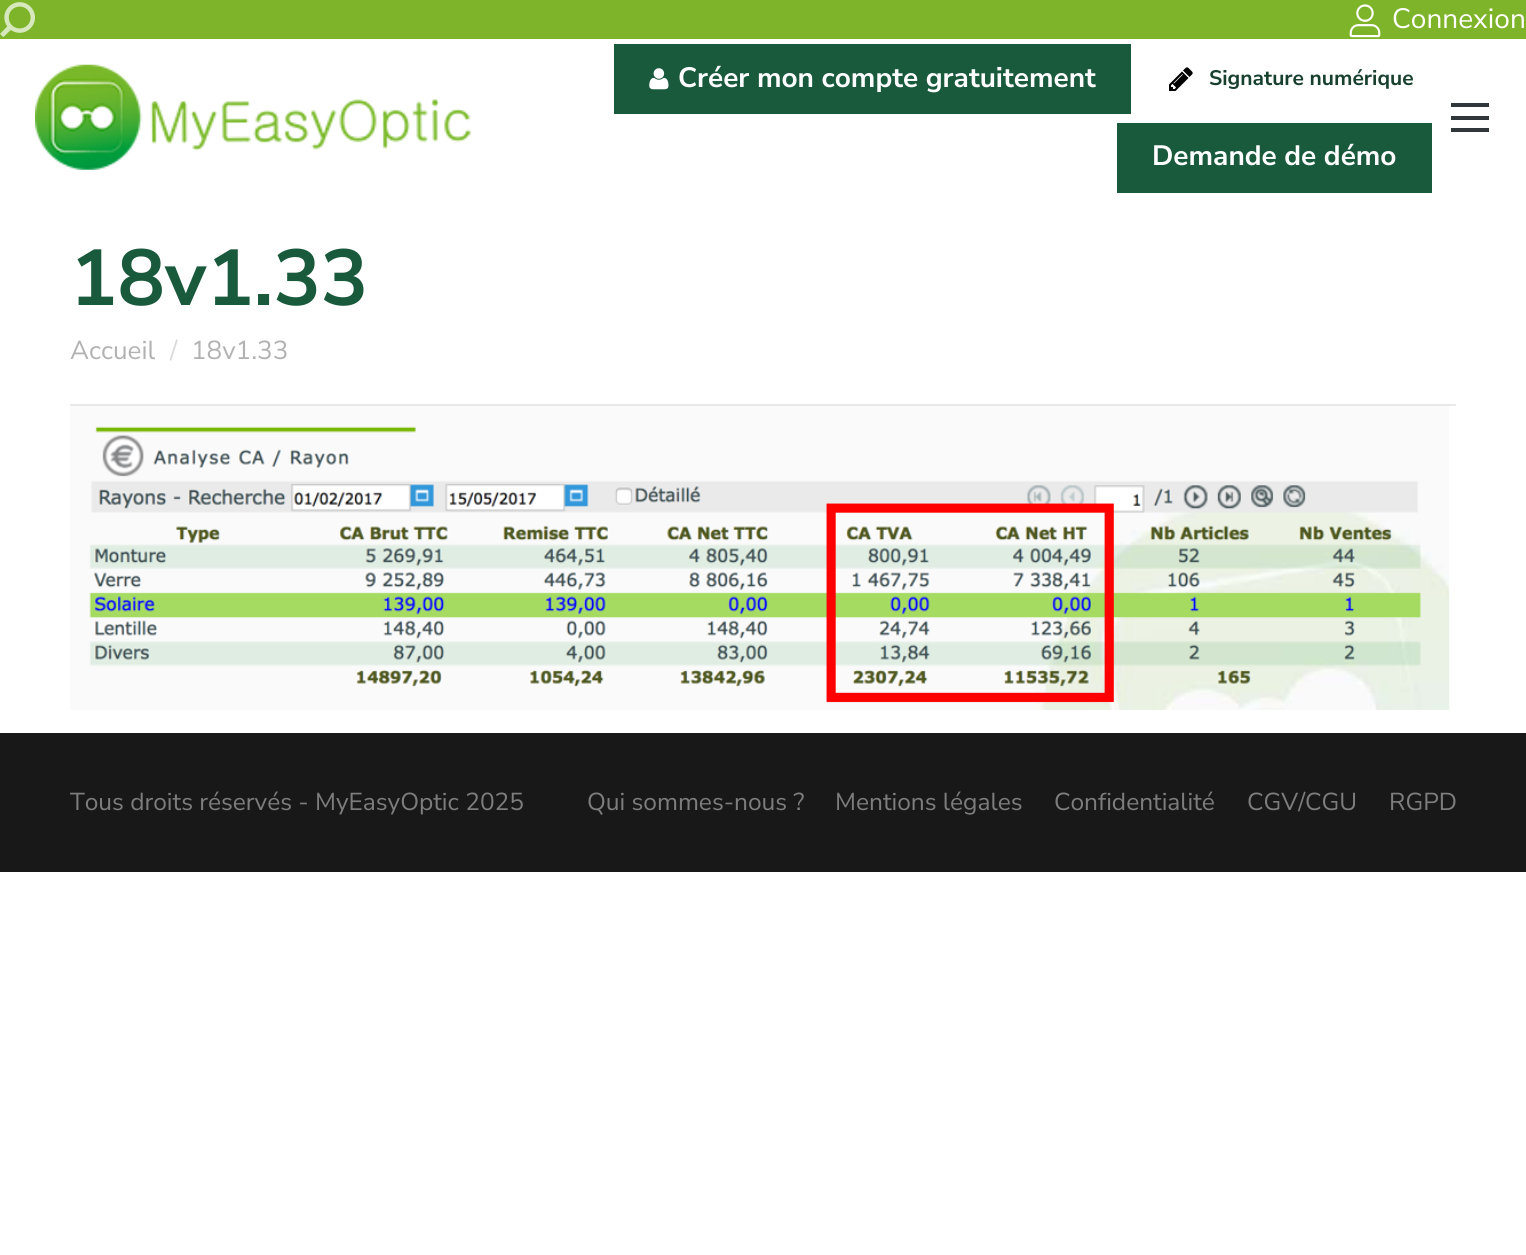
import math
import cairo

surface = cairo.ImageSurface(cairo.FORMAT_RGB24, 1526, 1255)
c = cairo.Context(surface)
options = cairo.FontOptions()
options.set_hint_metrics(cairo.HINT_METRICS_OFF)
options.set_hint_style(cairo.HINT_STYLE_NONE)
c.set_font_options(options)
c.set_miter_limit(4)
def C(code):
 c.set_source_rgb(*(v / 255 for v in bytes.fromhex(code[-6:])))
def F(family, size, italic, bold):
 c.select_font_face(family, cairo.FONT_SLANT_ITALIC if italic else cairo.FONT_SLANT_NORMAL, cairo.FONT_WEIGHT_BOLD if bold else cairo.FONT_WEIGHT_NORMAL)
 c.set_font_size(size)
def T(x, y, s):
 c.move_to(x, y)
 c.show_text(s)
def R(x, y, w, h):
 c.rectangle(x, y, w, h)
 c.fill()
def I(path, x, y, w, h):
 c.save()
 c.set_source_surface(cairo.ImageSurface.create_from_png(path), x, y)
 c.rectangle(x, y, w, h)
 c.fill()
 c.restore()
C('ffffff')
c.paint()
C('7eb429')
R(0,0,1526,39)
I('1.png',0,2,35,36)
I('2.png',1349,4,32,34)
F('Nunito Sans',28,0,0)
C('ffffff')
T(1392,28,'Connexion')
I('3.png',35,64,437,106)
C('19593c')
R(614,44,517,70)
I('4.png',649,68,20,22)
F('Nunito Sans',28,0,1)
C('ffffff')
T(678,87,'Créer mon compte gratuitement')
I('5.png',1169,67,24,24)
F('Nunito Sans',21,0,1)
C('18402e')
T(1209,85,'Signature numérique')
C('19593c')
R(1117,123,315,70)
F('Nunito Sans',28,0,1)
C('ffffff')
T(1152,165,'Demande de démo')
C('30373a')
R(1451,103,38,4)
R(1451,116,38,4)
R(1451,128,38,4)
F('Nunito Sans',79,0,1)
C('19593c')
T(70,305,'18v1.33')
F('Nunito Sans',26,0,0)
C('b2b2b2')
T(70,359,'Accueil')
C('d9d9d9')
T(170,359,'/')
C('b2b2b2')
T(191,359,'18v1.33')
C('e9e9e9')
R(70,404,1386,2)
I('6.png',70,406,1380,304)
C('181818')
R(0,733,1526,139)
F('Nunito Sans',24.5,0,0)
C('7d7d7d')
T(70,810,'Tous droits réservés - MyEasyOptic 2025')
T(587,810,'Qui sommes-nous ?')
T(835,810,'Mentions légales')
T(1054,810,'Confidentialité')
T(1247,810,'CGV/CGU')
T(1389,810,'RGPD')
surface.write_to_png('o.png')
